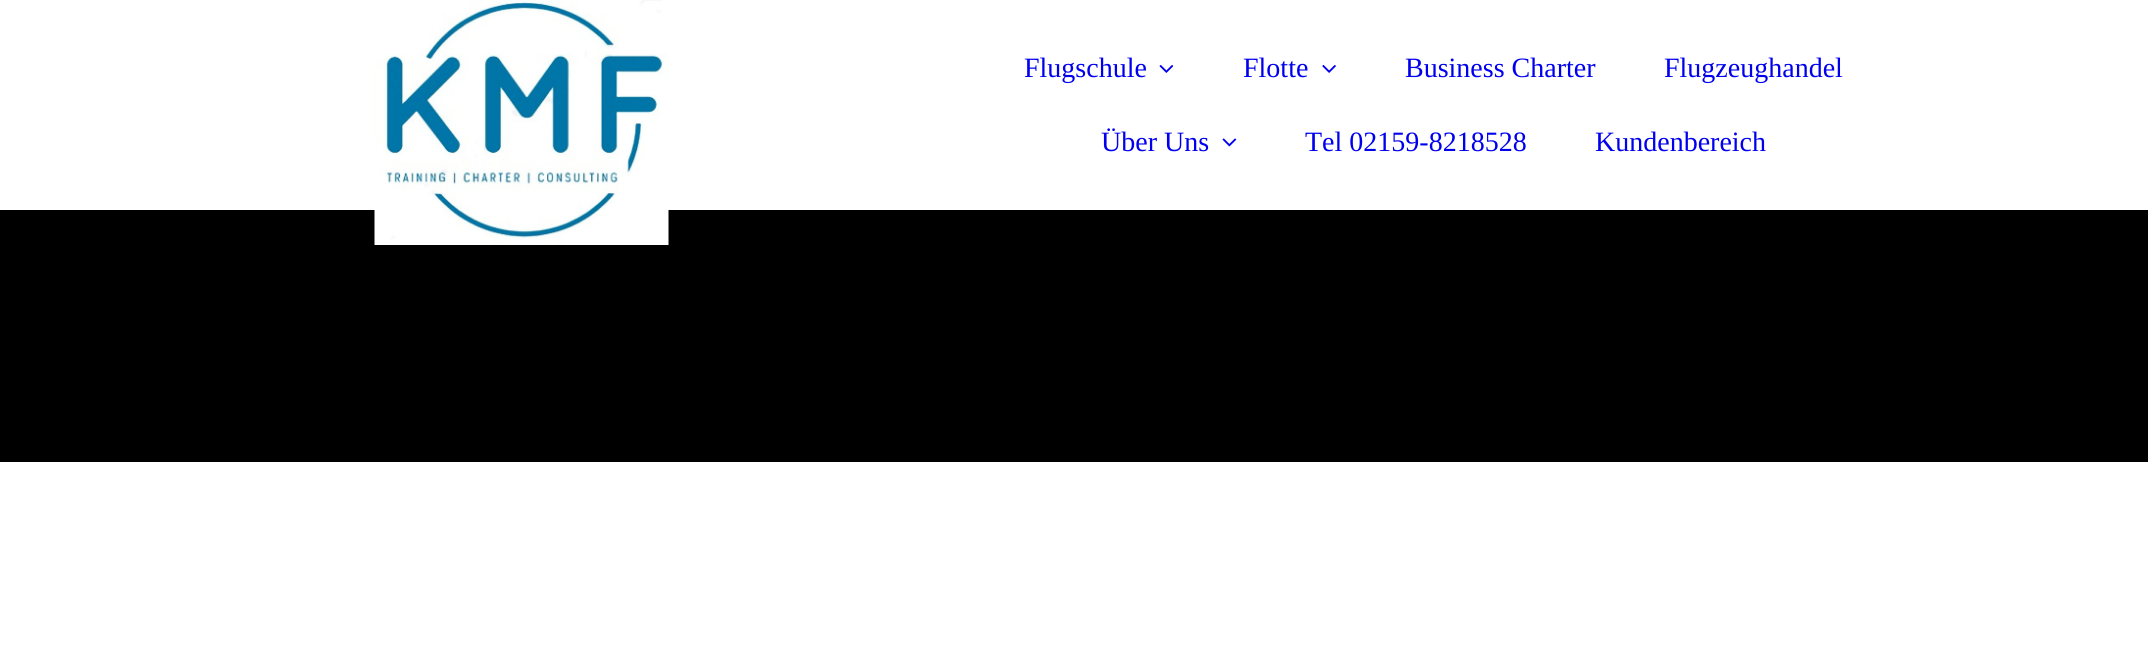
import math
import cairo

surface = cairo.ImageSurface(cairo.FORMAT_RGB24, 2148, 670)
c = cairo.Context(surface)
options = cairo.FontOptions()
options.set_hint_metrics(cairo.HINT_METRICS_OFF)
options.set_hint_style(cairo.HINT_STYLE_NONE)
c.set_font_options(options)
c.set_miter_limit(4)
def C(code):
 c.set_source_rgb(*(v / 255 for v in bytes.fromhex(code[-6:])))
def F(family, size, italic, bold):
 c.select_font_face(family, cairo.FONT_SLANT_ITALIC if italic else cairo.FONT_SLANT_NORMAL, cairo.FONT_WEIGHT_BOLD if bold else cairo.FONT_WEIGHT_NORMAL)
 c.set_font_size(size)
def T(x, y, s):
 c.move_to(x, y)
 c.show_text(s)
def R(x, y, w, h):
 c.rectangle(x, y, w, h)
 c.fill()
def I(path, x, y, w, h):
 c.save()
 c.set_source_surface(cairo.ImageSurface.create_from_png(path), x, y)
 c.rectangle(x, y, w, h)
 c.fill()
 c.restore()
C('ffffff')
c.paint()
C('000000')
R(0,210,2148,252)
I('1.png',374,0,295,245)
F('Liberation Serif',28,0,0)
C('0000ee')
T(1024,77,'Flugschule')
I('2.png',1159,65,15,8)
T(1243,77,'Flotte')
I('3.png',1322,65,14,8)
T(1405,77,'Business Charter')
T(1664,77,'Flugzeughandel')
T(1101,151,'Über Uns')
I('4.png',1222,138,15,9)
T(1305,151,'Tel 02159-8218528')
T(1595,151,'Kundenbereich')
surface.write_to_png('o.png')
